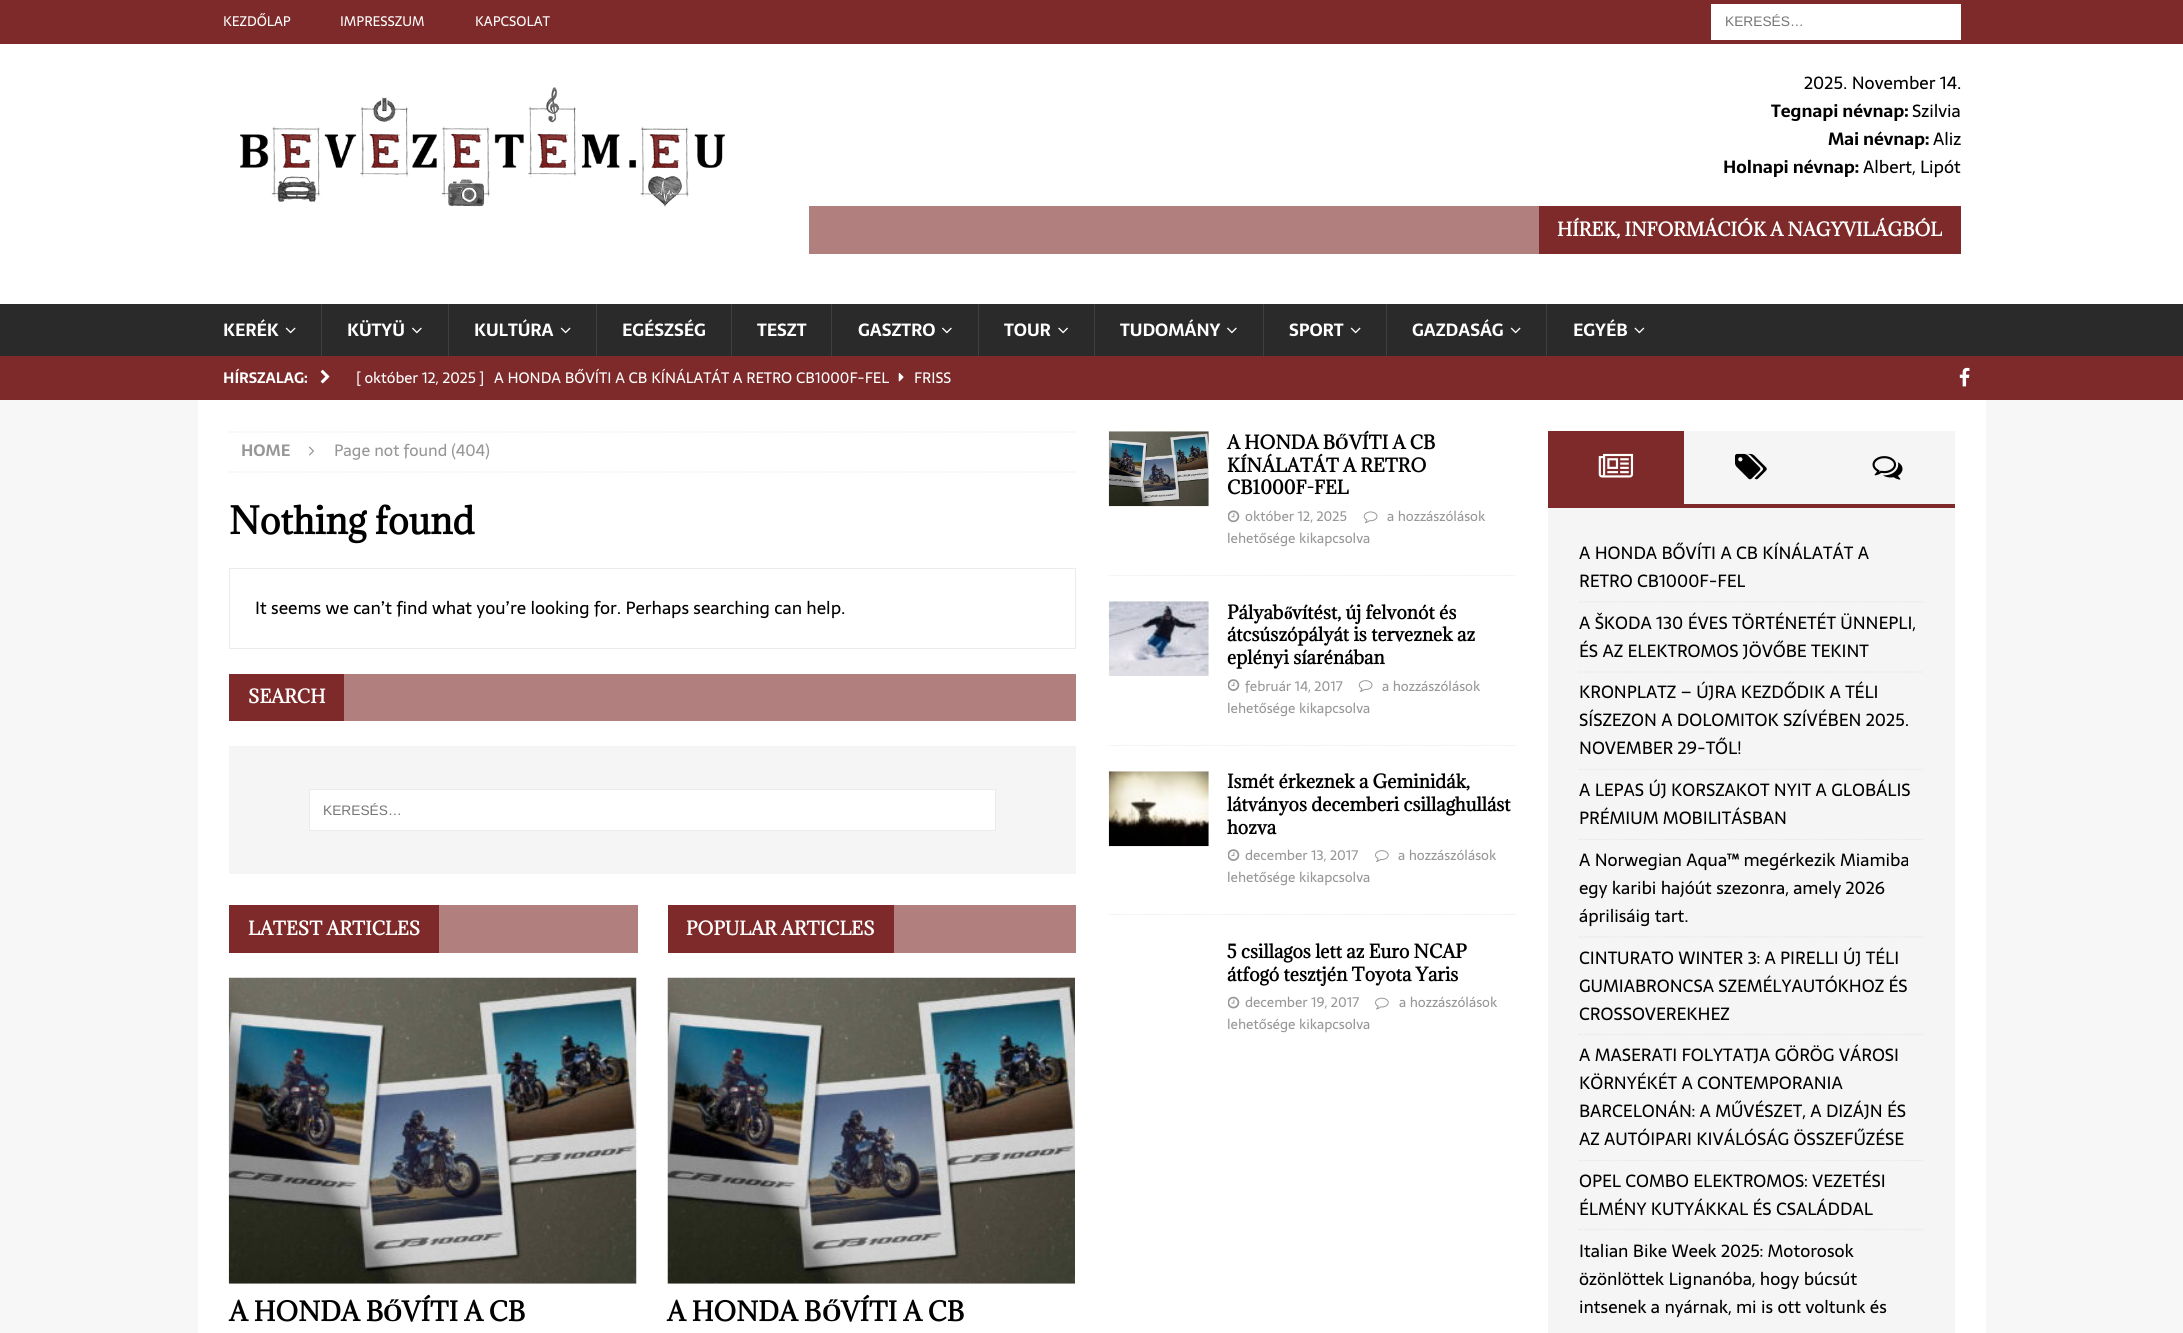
import math
import cairo

surface = cairo.ImageSurface(cairo.FORMAT_RGB24, 2183, 1333)
c = cairo.Context(surface)
options = cairo.FontOptions()
options.set_hint_metrics(cairo.HINT_METRICS_OFF)
options.set_hint_style(cairo.HINT_STYLE_NONE)
c.set_font_options(options)
c.set_miter_limit(4)
def C(code):
 c.set_source_rgb(*(v / 255 for v in bytes.fromhex(code[-6:])))
def F(family, size, italic, bold):
 c.select_font_face(family, cairo.FONT_SLANT_ITALIC if italic else cairo.FONT_SLANT_NORMAL, cairo.FONT_WEIGHT_BOLD if bold else cairo.FONT_WEIGHT_NORMAL)
 c.set_font_size(size)
def T(x, y, s):
 c.move_to(x, y)
 c.show_text(s)
def R(x, y, w, h):
 c.rectangle(x, y, w, h)
 c.fill()
def I(path, x, y, w, h):
 c.save()
 c.set_source_surface(cairo.ImageSurface.create_from_png(path), x, y)
 c.rectangle(x, y, w, h)
 c.fill()
 c.restore()
C('f7f7f7')
c.paint()
C('7f2a2a')
R(0,0,2183,44)
F('Sarala',13.75,0,0)
C('ffffff')
T(223,26,'KEZDŐLAP')
T(340,26,'IMPRESSZUM')
T(475,26,'KAPCSOLAT')
R(1711,4,250,36)
F('Liberation Sans',13.75,0,0)
C('757575')
T(1725,26,'KERESÉS…')
C('ffffff')
R(0,44,2183,260)
I('1.png',240,87,486,120)
F('Sarala',17.5,0,0)
C('000000')
T(1804,89,'2025. November 14.')
F('Sarala',17.5,0,1)
T(1771,117,'Tegnapi névnap:')
F('Sarala',17.5,0,0)
T(1912,117,'Szilvia')
F('Sarala',17.5,0,1)
T(1828,145,'Mai névnap:')
F('Sarala',17.5,0,0)
T(1933,145,'Aliz')
F('Sarala',17.5,0,1)
T(1723,173,'Holnapi névnap:')
F('Sarala',17.5,0,0)
T(1863,173,'Albert, Lipót')
C('b27f7f')
R(809,206,730,48)
C('7f2a2a')
R(1539,206,422,48)
F('Adamina',17.5,0,1)
C('ffffff')
T(1557,236,'HÍREK, INFORMÁCIÓK A NAGYVILÁGBÓL')
C('2a2a2a')
R(0,304,2183,52)
F('Sarala',17.5,0,1)
C('ffffff')
T(223,336,'KERÉK')
I('2.png',285,327,11,7)
C('3f3f3f')
R(321,304,1,52)
C('ffffff')
T(347,336,'KÜTYÜ')
I('3.png',412,327,10,7)
C('3f3f3f')
R(448,304,1,52)
C('ffffff')
T(474,336,'KULTÚRA')
I('2.png',560,327,11,7)
C('3f3f3f')
R(596,304,1,52)
C('ffffff')
T(622,336,'EGÉSZSÉG')
C('3f3f3f')
R(731,304,1,52)
C('ffffff')
T(757,336,'TESZT')
C('3f3f3f')
R(831,304,1,52)
C('ffffff')
T(858,336,'GASZTRO')
I('3.png',942,327,10,7)
C('3f3f3f')
R(978,304,1,52)
C('ffffff')
T(1004,336,'TOUR')
I('4.png',1058,327,10,7)
C('3f3f3f')
R(1094,304,1,52)
C('ffffff')
T(1120,336,'TUDOMÁNY')
I('3.png',1227,327,10,7)
C('3f3f3f')
R(1263,304,1,52)
C('ffffff')
T(1289,336,'SPORT')
I('2.png',1350,327,11,7)
C('3f3f3f')
R(1386,304,1,52)
C('ffffff')
T(1412,336,'GAZDASÁG')
I('2.png',1510,327,11,7)
C('3f3f3f')
R(1546,304,1,52)
C('ffffff')
T(1573,336,'EGYÉB')
I('5.png',1634,327,11,7)
C('7f2a2a')
R(0,356,2183,44)
F('Sarala',15,0,1)
C('ffffff')
T(223,383,'HÍRSZALAG:')
I('6.png',320,369,10,15)
F('Sarala',15,0,0)
T(356,383,'[ október 12, 2025 ]')
T(494,383,'A HONDA BŐVÍTI A CB KÍNÁLATÁT A RETRO CB1000F-FEL')
I('7.png',898,372,6,10)
T(914,383,'FRISS')
I('8.png',1959,367,11,20)
R(198,400,1788,933)
c.new_path()
c.move_to(229,432)
c.line_to(1076,432)
C('ebebeb')
c.set_line_width(1.2)
c.set_dash([1.25,1.25])
c.stroke()
c.new_path()
c.move_to(229,472)
c.line_to(1076,472)
c.stroke()
F('Sarala',16.25,0,1)
C('979797')
T(241,456,'HOME')
I('9.png',308,446,6,10)
F('Sarala',16.25,0,0)
T(334,456,'Page not found (404)')
F('Adamina',35,0,1)
C('000000')
T(229,534,'Nothing found')
c.rectangle(229.5,568.5,846,80)
C('ebebeb')
c.set_line_width(1)
c.set_dash([])
c.stroke()
F('Sarala',17.5,0,0)
C('000000')
T(255,614,'It seems we can’t find what you’re looking for. Perhaps searching can help.')
C('b27f7f')
R(344,674,732,47)
C('7f2a2a')
R(229,674,115,47)
F('Adamina',17.5,0,1)
C('ffffff')
T(248,703,'SEARCH')
C('f5f5f5')
R(229,746,847,128)
C('ffffff')
c.rectangle(309.5,789.5,686,41)
c.fill_preserve()
C('ebebeb')
c.stroke()
F('Liberation Sans',13.75,0,0)
C('757575')
T(323,815,'KERESÉS…')
C('b27f7f')
R(439,905,199,48)
C('7f2a2a')
R(229,905,210,48)
F('Adamina',17.5,0,1)
C('ffffff')
T(248,935,'LATEST ARTICLES')
I('10.png',228,977,409,307)
F('Adamina',25,0,1)
C('000000')
T(229,1321,'A HONDA B')
F('Liberation Serif',25,0,1)
T(383,1321,'Ő')
F('Adamina',25,0,1)
T(402,1321,'VÍTI A CB')
C('b27f7f')
R(894,905,182,48)
C('7f2a2a')
R(668,905,226,48)
F('Adamina',17.5,0,1)
C('ffffff')
T(686,935,'POPULAR ARTICLES')
I('11.png',667,977,408,307)
F('Adamina',25,0,1)
C('000000')
T(667,1321,'A HONDA B')
F('Liberation Serif',25,0,1)
T(822,1321,'Ő')
F('Adamina',25,0,1)
T(841,1321,'VÍTI A CB')
c.new_path()
c.move_to(1109,575.5)
c.line_to(1516,575.5)
C('ebebeb')
c.set_line_width(1.2)
c.set_dash([1.25,1.25])
c.stroke()
I('12.png',1108,431,101,76)
F('Adamina',17.5,0,1)
C('000000')
T(1227,449,'A HONDA B')
F('Liberation Serif',17.5,0,1)
T(1335,449,'Ő')
F('Adamina',17.5,0,1)
T(1349,449,'VÍTI A CB')
T(1227,472,'KÍNÁLATÁT A RETRO')
T(1227,494,'CB1000F-FEL')
I('13.png',1363,511,15,13)
F('Sarala',13.75,0,0)
C('979797')
T(1387,521,'a hozzászólások')
T(1227,543,'lehetősége kikapcsolva')
I('14.png',1228,510,12,13)
T(1245,521,'október 12, 2025')
c.new_path()
c.move_to(1109,745.5)
c.line_to(1516,745.5)
C('ebebeb')
c.stroke()
I('15.png',1108,601,101,75)
F('Adamina',17.5,0,1)
C('000000')
T(1227,619,'Pályab')
F('Liberation Serif',17.5,0,1)
T(1284,619,'ő')
F('Adamina',17.5,0,1)
T(1292,619,'vítést, új felvonót és')
T(1227,641,'átcsúszópályát is terveznek az')
T(1227,664,'eplényi síarénában')
I('16.png',1358,680,15,12)
F('Sarala',13.75,0,0)
C('979797')
T(1382,691,'a hozzászólások')
T(1227,713,'lehetősége kikapcsolva')
I('17.png',1228,679,12,12)
T(1245,691,'február 14, 2017')
c.new_path()
c.move_to(1109,914.5)
c.line_to(1516,914.5)
C('ebebeb')
c.stroke()
I('18.png',1108,771,101,76)
F('Adamina',17.5,0,1)
C('000000')
T(1227,788,'Ismét érkeznek a Geminidák,')
T(1227,811,'látványos decemberi csillaghullást')
T(1227,834,'hozva')
I('19.png',1375,850,14,12)
F('Sarala',13.75,0,0)
C('979797')
T(1398,860,'a hozzászólások')
T(1227,882,'lehetősége kikapcsolva')
I('17.png',1228,849,12,12)
T(1245,860,'december 13, 2017')
F('Adamina',17.5,0,1)
C('000000')
T(1227,958,'5 csillagos lett az Euro NCAP')
T(1227,981,'átfogó tesztjén Toyota Yaris')
I('20.png',1375,997,14,13)
F('Sarala',13.75,0,0)
C('979797')
T(1399,1007,'a hozzászólások')
T(1227,1029,'lehetősége kikapcsolva')
I('21.png',1228,996,12,13)
T(1245,1007,'december 19, 2017')
C('7f2a2a')
R(1548,504,407,4)
R(1548,431,136,73)
I('22.png',1598,453,36,25)
C('f5f5f5')
R(1684,431,271,73)
I('23.png',1735,453,32,27)
I('24.png',1872,456,31,24)
R(1548,508,407,825)
c.new_path()
c.move_to(1579,602)
c.line_to(1924,602)
C('e5e5e5')
c.stroke()
F('Sarala',17.5,0,0)
C('000000')
T(1579,559,'A HONDA BŐVÍTI A CB KÍNÁLATÁT A')
T(1579,587,'RETRO CB1000F-FEL')
c.new_path()
c.move_to(1579,672)
c.line_to(1924,672)
C('e5e5e5')
c.stroke()
C('000000')
T(1579,629,'A ŠKODA 130 ÉVES TÖRTÉNETÉT ÜNNEPLI,')
T(1579,657,'ÉS AZ ELEKTROMOS JÖVŐBE TEKINT')
c.new_path()
c.move_to(1579,769.5)
c.line_to(1924,769.5)
C('e5e5e5')
c.stroke()
C('000000')
T(1579,698,'KRONPLATZ – ÚJRA KEZDŐDIK A TÉLI')
T(1579,726,'SÍSZEZON A DOLOMITOK SZÍVÉBEN 2025.')
T(1579,754,'NOVEMBER 29-TŐL!')
c.new_path()
c.move_to(1579,839.5)
c.line_to(1924,839.5)
C('e5e5e5')
c.stroke()
C('000000')
T(1579,796,'A LEPAS ÚJ KORSZAKOT NYIT A GLOBÁLIS')
T(1579,824,'PRÉMIUM MOBILITÁSBAN')
c.new_path()
c.move_to(1579,937)
c.line_to(1924,937)
C('e5e5e5')
c.stroke()
C('000000')
T(1579,866,'A Norwegian Aqua™ megérkezik Miamiba')
T(1579,894,'egy karibi hajóút szezonra, amely 2026')
T(1579,922,'áprilisáig tart.')
c.new_path()
c.move_to(1579,1034.5)
c.line_to(1924,1034.5)
C('e5e5e5')
c.stroke()
C('000000')
T(1579,964,'CINTURATO WINTER 3: A PIRELLI ÚJ TÉLI')
T(1579,992,'GUMIABRONCSA SZEMÉLYAUTÓKHOZ ÉS')
T(1579,1020,'CROSSOVEREKHEZ')
c.new_path()
c.move_to(1579,1160.5)
c.line_to(1924,1160.5)
C('e5e5e5')
c.stroke()
C('000000')
T(1579,1061,'A MASERATI FOLYTATJA GÖRÖG VÁROSI')
T(1579,1089,'KÖRNYÉKÉT A CONTEMPORANIA')
T(1579,1117,'BARCELONÁN: A MŰVÉSZET, A DIZÁJN ÉS')
T(1579,1145,'AZ AUTÓIPARI KIVÁLÓSÁG ÖSSZEFŰZÉSE')
c.new_path()
c.move_to(1579,1229.5)
c.line_to(1924,1229.5)
C('e5e5e5')
c.stroke()
C('000000')
T(1579,1187,'OPEL COMBO ELEKTROMOS: VEZETÉSI')
T(1579,1215,'ÉLMÉNY KUTYÁKKAL ÉS CSALÁDDAL')
T(1579,1257,'Italian Bike Week 2025: Motorosok')
T(1579,1285,'özönlöttek Lignanóba, hogy búcsút')
T(1579,1313,'intsenek a nyárnak, mi is ott voltunk és')
surface.write_to_png('o.png')
